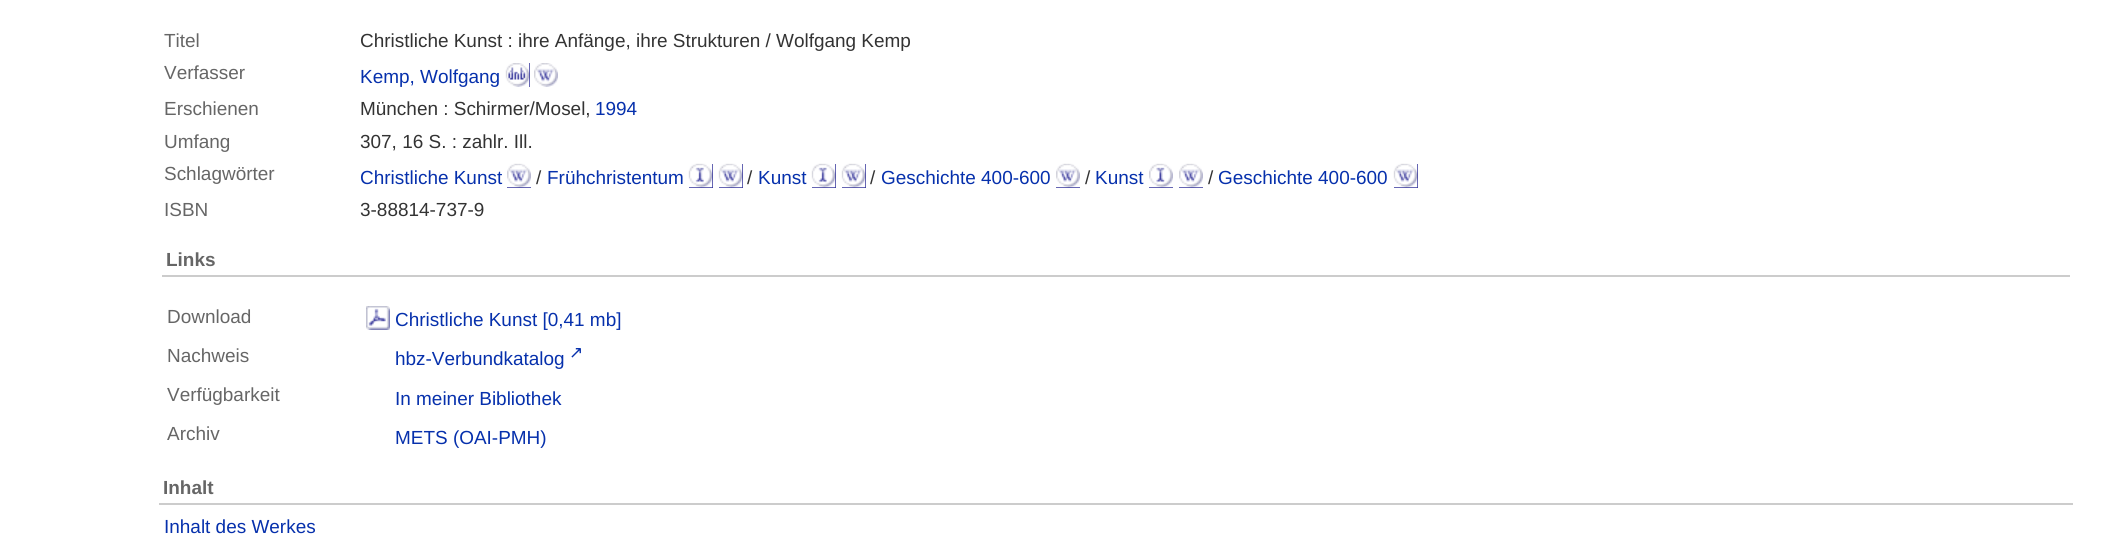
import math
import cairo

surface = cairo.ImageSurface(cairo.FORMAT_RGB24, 2115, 541)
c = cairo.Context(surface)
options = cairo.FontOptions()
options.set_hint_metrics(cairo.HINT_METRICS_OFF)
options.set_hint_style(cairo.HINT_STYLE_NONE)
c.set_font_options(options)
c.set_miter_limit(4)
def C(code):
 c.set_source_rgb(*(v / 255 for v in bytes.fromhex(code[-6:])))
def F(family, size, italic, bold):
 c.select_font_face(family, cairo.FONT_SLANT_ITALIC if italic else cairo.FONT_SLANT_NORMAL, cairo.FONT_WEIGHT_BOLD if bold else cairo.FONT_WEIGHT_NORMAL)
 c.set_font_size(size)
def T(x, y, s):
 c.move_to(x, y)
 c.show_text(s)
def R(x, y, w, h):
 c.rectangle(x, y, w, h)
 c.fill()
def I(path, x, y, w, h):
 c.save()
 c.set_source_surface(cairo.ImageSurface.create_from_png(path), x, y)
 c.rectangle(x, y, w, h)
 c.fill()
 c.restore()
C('ffffff')
c.paint()
F('Liberation Sans',18.95,0,0)
C('666666')
T(164,47,'Titel')
C('333333')
T(360,47,'Christliche Kunst : ihre Anfänge, ihre Strukturen / Wolfgang Kemp')
C('666666')
T(164,79,'Verfasser')
C('0630ac')
T(360,83,'Kemp, Wolfgang')
C('333399')
R(506,63,24,24)
R(534,63,24,24)
I('1.png',505,63,25,24)
I('2.png',534,63,24,24)
C('666666')
T(164,115,'Erschienen')
C('333333')
T(360,115,'München : Schirmer/Mosel,')
C('0630ac')
T(595,115,'1994')
C('666666')
T(164,148,'Umfang')
C('333333')
T(360,148,'307, 16 S. : zahlr. Ill.')
C('666666')
T(164,180,'Schlagwörter')
C('0630ac')
T(360,184,'Christliche Kunst')
C('333399')
R(507,164,24,24)
I('3.png',507,163,24,25)
C('333333')
T(536,184,'/')
C('0630ac')
T(547,184,'Frühchristentum')
C('333399')
R(689,164,24,24)
I('4.png',688,163,25,25)
R(719,164,24,24)
I('5.png',718,163,25,25)
C('333333')
T(747,184,'/')
C('0630ac')
T(758,184,'Kunst')
C('333399')
R(812,164,24,24)
I('6.png',811,163,25,25)
R(842,164,24,24)
I('7.png',841,163,25,25)
C('333333')
T(870,184,'/')
C('0630ac')
T(881,184,'Geschichte 400-600')
C('333399')
R(1056,164,24,24)
I('8.png',1056,163,24,25)
C('333333')
T(1085,184,'/')
C('0630ac')
T(1095,184,'Kunst')
C('333399')
R(1149,164,24,24)
I('9.png',1149,163,24,25)
R(1179,164,24,24)
I('8.png',1179,163,24,25)
C('333333')
T(1208,184,'/')
C('0630ac')
T(1218,184,'Geschichte 400-600')
C('333399')
R(1394,164,24,24)
I('5.png',1393,163,25,25)
C('666666')
T(164,216,'ISBN')
C('333333')
T(360,216,'3-88814-737-9')
C('cccccc')
R(162,275,1908,2)
F('Liberation Sans',18.95,0,1)
C('666666')
T(166,266,'Links')
F('Liberation Sans',18.95,0,0)
T(167,323,'Download')
C('333399')
R(366,306,24,24)
I('10.png',366,306,24,24)
C('0630ac')
T(395,326,'Christliche Kunst [0,41 mb]')
C('666666')
T(167,362,'Nachweis')
C('0630ac')
T(395,365,'hbz-Verbundkatalog')
F('DejaVu Sans',17,0,0)
T(569,358,'↗')
F('Liberation Sans',18.95,0,0)
C('666666')
T(167,401,'Verfügbarkeit')
C('0630ac')
T(395,405,'In meiner Bibliothek')
C('666666')
T(167,440,'Archiv')
C('0630ac')
T(395,444,'METS (OAI-PMH)')
C('cccccc')
R(159,503,1914,2)
F('Liberation Sans',18.95,0,1)
C('666666')
T(163,494,'Inhalt')
F('Liberation Sans',18.95,0,0)
C('0630ac')
T(164,533,'Inhalt des Werkes')
surface.write_to_png('o.png')
